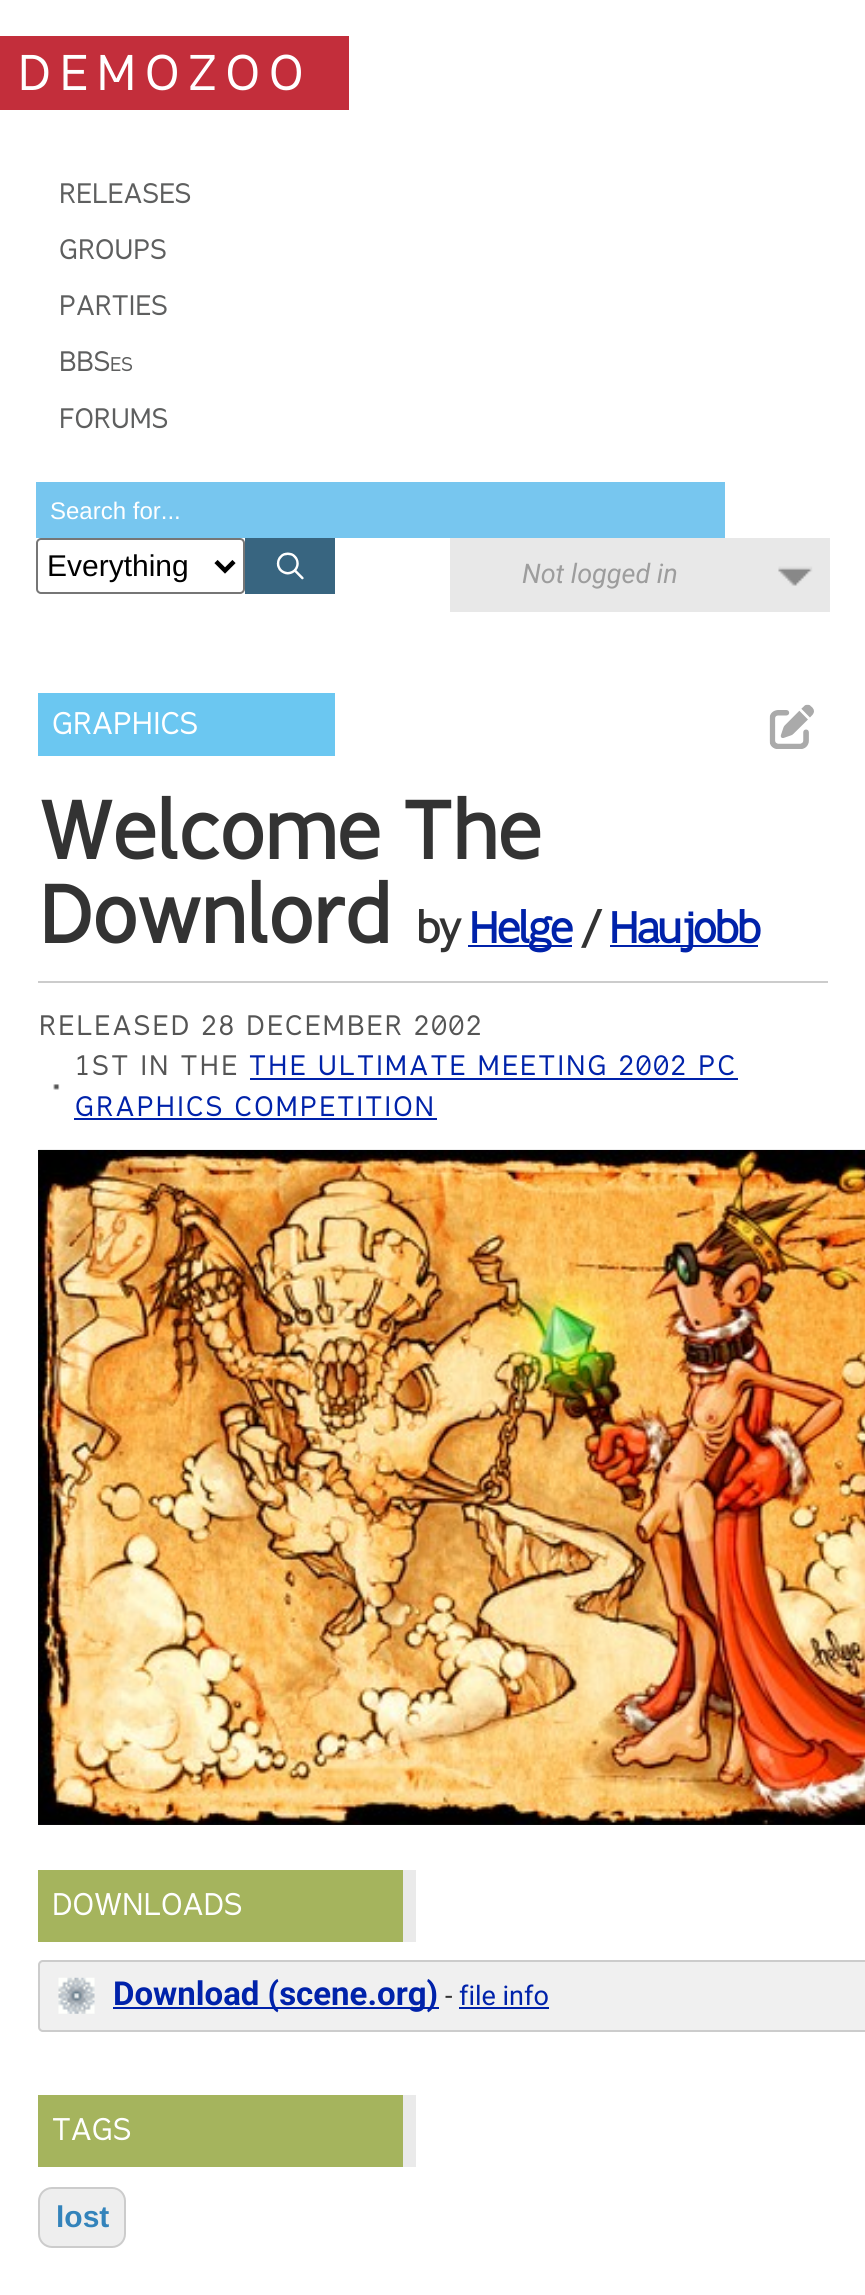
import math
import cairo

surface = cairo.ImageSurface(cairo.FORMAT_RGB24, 865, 2295)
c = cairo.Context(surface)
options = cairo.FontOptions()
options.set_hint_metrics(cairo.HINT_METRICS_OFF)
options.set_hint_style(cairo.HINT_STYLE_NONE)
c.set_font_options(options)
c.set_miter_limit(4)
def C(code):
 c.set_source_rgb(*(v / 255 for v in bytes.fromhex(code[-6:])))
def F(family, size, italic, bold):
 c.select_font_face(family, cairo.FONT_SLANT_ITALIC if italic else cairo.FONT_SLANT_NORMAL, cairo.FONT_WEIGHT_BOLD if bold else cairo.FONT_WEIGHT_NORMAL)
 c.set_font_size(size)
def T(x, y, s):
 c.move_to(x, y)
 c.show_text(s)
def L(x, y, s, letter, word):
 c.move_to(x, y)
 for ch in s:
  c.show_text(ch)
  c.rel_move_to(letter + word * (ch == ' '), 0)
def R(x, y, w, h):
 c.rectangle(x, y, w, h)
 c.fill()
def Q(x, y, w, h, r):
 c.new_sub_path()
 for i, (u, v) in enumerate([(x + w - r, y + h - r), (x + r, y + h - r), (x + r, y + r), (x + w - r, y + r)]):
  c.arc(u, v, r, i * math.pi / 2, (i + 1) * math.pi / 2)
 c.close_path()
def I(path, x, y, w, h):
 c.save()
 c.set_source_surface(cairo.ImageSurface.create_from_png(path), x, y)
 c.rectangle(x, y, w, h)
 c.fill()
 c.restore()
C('ffffff')
c.paint()
C('c32e3b')
R(0,36,349,74)
F('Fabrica',48,0,0)
C('ffffff')
L(18,90,'DEMOZOO',9,0)
F('Fabrica',27,0,0)
C('5e5f5f')
T(59,203,'RELEASES')
T(59,259,'GROUPS')
T(59,315,'PARTIES')
T(59,371,'BBS')
F('Fabrica',19,0,0)
T(110,371,'ES')
F('Fabrica',27,0,0)
T(59,428,'FORUMS')
C('77c6ef')
R(36,482,689,56)
F('Liberation Sans',24,0,0)
C('ffffff')
T(50,519,'Search for...')
Q(37,539,207,54,4)
C('767676')
c.stroke()
c.new_path()
c.move_to(216,561.5)
c.line_to(225,570.5)
c.line_to(234,561.5)
C('000000')
c.set_line_width(4.5)
c.stroke()
F('Liberation Sans',30,0,0)
T(47,576,'Everything')
C('386580')
R(245,538,90,56)
I('1.png',276,552,28,28)
C('e8e8e8')
R(450,538,380,74)
I('2.png',778,566,35,20)
F('Roboto',27,1,0)
C('9d9d9d')
T(522,583,'Not logged in')
C('6bc7f1')
R(38,693,297,63)
F('Fabrica',30,0,0)
C('ffffff')
T(52,734,'GRAPHICS')
I('3.png',769,704,45,45)
F('Fabrica',78,0,1)
C('333333')
T(39,859,'Welcome The')
T(39,943,'Downlord')
F('Fabrica',42,0,1)
L(416,943,'by',-2.25,0)
C('0022aa')
R(468,945,104,2)
L(469,943,'Helge',-2.25,0)
C('333333')
L(581,943,'/',-2.25,0)
C('0022aa')
R(610,945,148,2)
L(609,943,'Haujobb',-2.25,0)
C('cccccc')
R(38,981,790,2)
F('Fabrica',27,0,0)
C('555555')
L(39,1035,'RELEASED 28 DECEMBER 2002',2.25,0)
I('4.png',53,1084,7,6)
L(75,1075,'1ST IN THE',2.25,0)
C('0022aa')
L(249,1075,'THE ULTIMATE MEETING 2002 PC',2.25,0)
R(250,1078,488,2)
L(75,1116,'GRAPHICS COMPETITION',2.25,0)
R(74,1118,363,2)
C('111111')
R(38,1150,827,675)
I('5.png',38,1149,827,676)
C('a5b45d')
R(38,1870,365,72)
C('eaeaea')
R(403,1870,13,72)
F('Fabrica',30,0,0)
C('ffffff')
T(52,1915,'DOWNLOADS')
C('f0f0f0')
Q(38,1960,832,72,5)
c.fill()
I('6.png',58,1977,37,37)
Q(39,1961,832,70,4)
C('cccccc')
c.set_line_width(2)
c.stroke()
C('0022aa')
R(113,2007,326,2)
F('Roboto',33,0,1)
T(113,2005,'Download (scene.org)')
F('Roboto',27,0,0)
C('333333')
T(445,2005,'-')
C('0022aa')
T(459,2005,'file info')
R(459,2007,90,2)
C('a5b45d')
R(38,2095,365,72)
C('eaeaea')
R(403,2095,13,72)
F('Fabrica',30,0,0)
C('ffffff')
T(52,2140,'TAGS')
C('eeeeee')
Q(39,2188,86,59,13)
c.fill_preserve()
C('cccccc')
c.stroke()
F('Liberation Sans',30,0,1)
C('3383bb')
T(56,2227,'lost')
surface.write_to_png('o.png')
